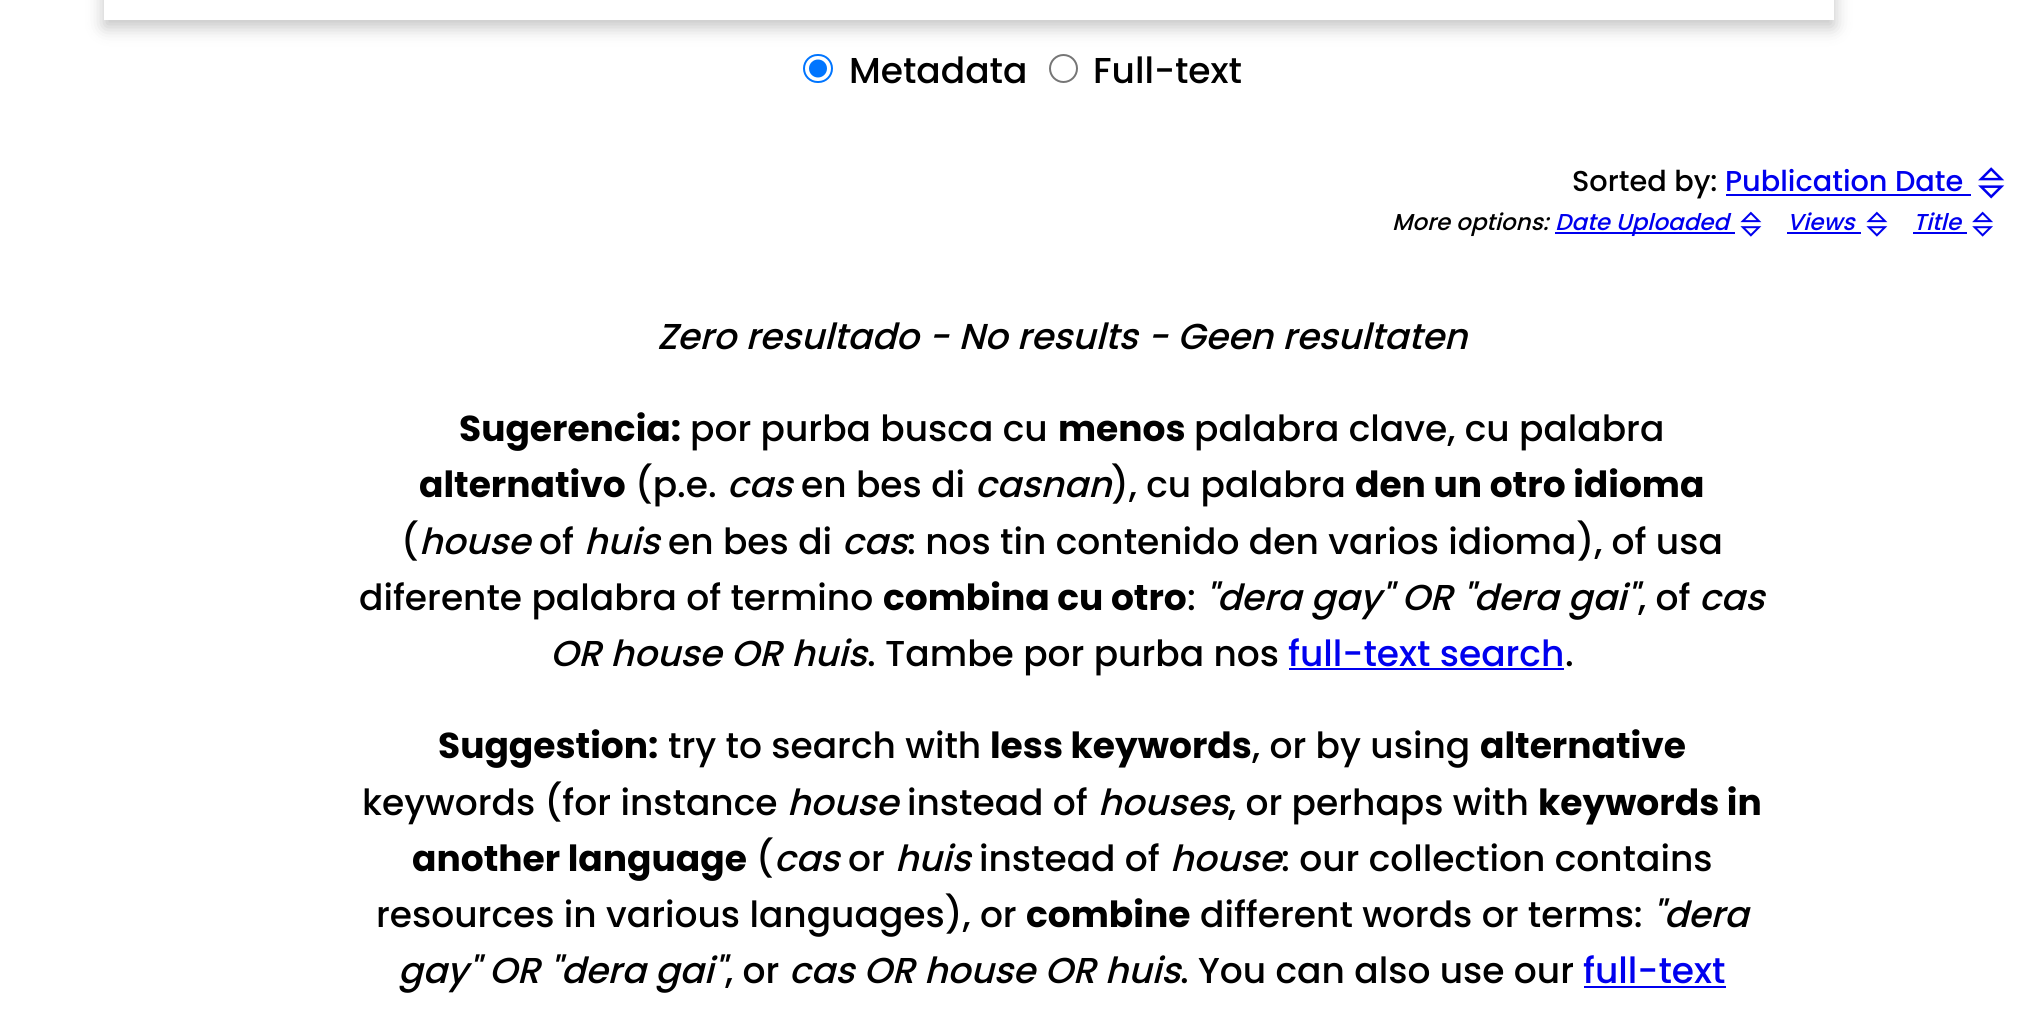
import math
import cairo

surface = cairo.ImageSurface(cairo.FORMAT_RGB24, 2034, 1021)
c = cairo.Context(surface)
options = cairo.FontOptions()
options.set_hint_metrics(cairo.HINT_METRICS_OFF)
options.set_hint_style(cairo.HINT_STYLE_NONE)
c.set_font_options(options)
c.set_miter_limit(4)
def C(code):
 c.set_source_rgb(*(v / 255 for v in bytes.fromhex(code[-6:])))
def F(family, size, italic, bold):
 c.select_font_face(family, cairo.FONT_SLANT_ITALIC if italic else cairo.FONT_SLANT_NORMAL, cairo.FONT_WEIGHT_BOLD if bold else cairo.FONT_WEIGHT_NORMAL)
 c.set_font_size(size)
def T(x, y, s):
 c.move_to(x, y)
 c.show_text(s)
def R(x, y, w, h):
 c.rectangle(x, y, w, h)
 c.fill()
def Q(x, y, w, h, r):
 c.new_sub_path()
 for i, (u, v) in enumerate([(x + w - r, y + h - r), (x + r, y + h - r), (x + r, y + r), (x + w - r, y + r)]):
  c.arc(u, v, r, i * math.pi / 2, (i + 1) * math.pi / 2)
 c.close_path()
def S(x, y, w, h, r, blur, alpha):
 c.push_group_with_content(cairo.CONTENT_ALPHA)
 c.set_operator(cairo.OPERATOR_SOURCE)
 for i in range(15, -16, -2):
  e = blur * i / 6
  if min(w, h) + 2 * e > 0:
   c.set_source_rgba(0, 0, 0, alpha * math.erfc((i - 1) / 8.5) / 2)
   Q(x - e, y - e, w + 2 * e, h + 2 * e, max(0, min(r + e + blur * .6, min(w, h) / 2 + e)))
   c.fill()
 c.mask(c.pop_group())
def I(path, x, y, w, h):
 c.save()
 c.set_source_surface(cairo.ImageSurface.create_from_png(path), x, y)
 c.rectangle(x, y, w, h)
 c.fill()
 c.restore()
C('ffffff')
c.paint()
C('000000')
S(104,-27,1730,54,0,9,.24)
C('ffffff')
R(104,0,1730,20)
Q(804,55,28,27,13.5)
C('0075ff')
c.stroke()
c.arc(818,68.5,9,0,2 * math.pi)
c.fill()
F('Poppins Medium',36,0,0)
C('000000')
T(849,83,'Metadata')
c.new_path()
c.arc(1063.5,68.5,13.5,0,2 * math.pi)
C('767676')
c.stroke()
C('000000')
T(1093,83,'Full-text')
F('Poppins Medium',28.75,0,0)
T(1572,191,'Sorted by:')
C('0000ee')
T(1725,191,'Publication Date')
R(1726,194,245,2)
I('1.png',1978,167,27,32)
F('Poppins Medium',23,1,0)
C('000000')
T(1392,230,'More options:')
C('0000ee')
R(1555,232,180,2)
T(1555,230,'Date Uploaded')
I('2.png',1740,211,22,26)
T(1787,230,'Views')
R(1787,232,74,2)
I('2.png',1866,211,22,26)
T(1913,230,'Title')
R(1913,232,54,2)
I('3.png',1972,211,21,26)
F('Poppins Medium',36,1,0)
C('000000')
T(657,349,'Zero resultado - No results - Geen resultaten')
F('Poppins',36,0,1)
T(459,441,'Sugerencia:')
F('Poppins Medium',36,0,0)
T(690,441,'por purba busca cu')
F('Poppins',36,0,1)
T(1058,441,'menos')
F('Poppins Medium',36,0,0)
T(1194,441,'palabra clave, cu palabra')
F('Poppins',36,0,1)
T(419,497,'alternativo')
F('Poppins Medium',36,0,0)
T(635,497,'(p.e.')
F('Poppins Medium',36,1,0)
T(727,497,'cas')
F('Poppins Medium',36,0,0)
T(801,497,'en bes di')
F('Poppins Medium',36,1,0)
T(975,497,'casnan')
F('Poppins Medium',36,0,0)
T(1111,497,'), cu palabra')
F('Poppins',36,0,1)
T(1355,497,'den un otro idioma')
F('Poppins Medium',36,0,0)
T(401,554,'(')
F('Poppins Medium',36,1,0)
T(419,554,'house')
F('Poppins Medium',36,0,0)
T(539,554,'of')
F('Poppins Medium',36,1,0)
T(584,554,'huis')
F('Poppins Medium',36,0,0)
T(668,554,'en bes di')
F('Poppins Medium',36,1,0)
T(842,554,'cas')
F('Poppins Medium',36,0,0)
T(907,554,': nos tin contenido den varios idioma), of usa')
T(359,610,'diferente palabra of termino')
F('Poppins',36,0,1)
T(883,610,'combina cu otro')
F('Poppins Medium',36,0,0)
T(1187,610,':')
F('Poppins Medium',36,1,0)
T(1205,610,'"dera gay" OR "dera gai"')
F('Poppins Medium',36,0,0)
T(1638,610,', of')
F('Poppins Medium',36,1,0)
T(1699,610,'cas')
T(550,666,'OR house OR huis')
F('Poppins Medium',36,0,0)
T(867,666,'. Tambe por purba nos')
C('0000ee')
T(1288,666,'full-text search')
R(1289,668,275,2)
C('000000')
T(1565,666,'.')
F('Poppins',36,0,1)
T(438,758,'Suggestion:')
F('Poppins Medium',36,0,0)
T(668,758,'try to search with')
F('Poppins',36,0,1)
T(990,758,'less keywords')
F('Poppins Medium',36,0,0)
T(1252,758,', or by using')
F('Poppins',36,0,1)
T(1480,758,'alternative')
F('Poppins Medium',36,0,0)
T(362,815,'keywords (for instance')
F('Poppins Medium',36,1,0)
T(787,815,'house')
F('Poppins Medium',36,0,0)
T(907,815,'instead of')
F('Poppins Medium',36,1,0)
T(1098,815,'houses')
F('Poppins Medium',36,0,0)
T(1228,815,', or perhaps with')
F('Poppins',36,0,1)
T(1538,815,'keywords in')
T(412,871,'another language')
F('Poppins Medium',36,0,0)
T(756,871,'(')
F('Poppins Medium',36,1,0)
T(774,871,'cas')
F('Poppins Medium',36,0,0)
T(848,871,'or')
F('Poppins Medium',36,1,0)
T(895,871,'huis')
F('Poppins Medium',36,0,0)
T(979,871,'instead of')
F('Poppins Medium',36,1,0)
T(1170,871,'house')
F('Poppins Medium',36,0,0)
T(1281,871,': our collection contains')
T(376,927,'resources in various languages), or')
F('Poppins',36,0,1)
T(1026,927,'combine')
F('Poppins Medium',36,0,0)
T(1200,927,'different words or terms:')
F('Poppins Medium',36,1,0)
T(1652,927,'"dera')
T(398,983,'gay" OR "dera gai"')
F('Poppins Medium',36,0,0)
T(725,983,', or')
F('Poppins Medium',36,1,0)
T(789,983,'cas OR house OR huis')
F('Poppins Medium',36,0,0)
T(1180,983,'. You can also use our')
C('0000ee')
T(1583,983,'full-text')
R(1584,986,142,2)
surface.write_to_png('o.png')
